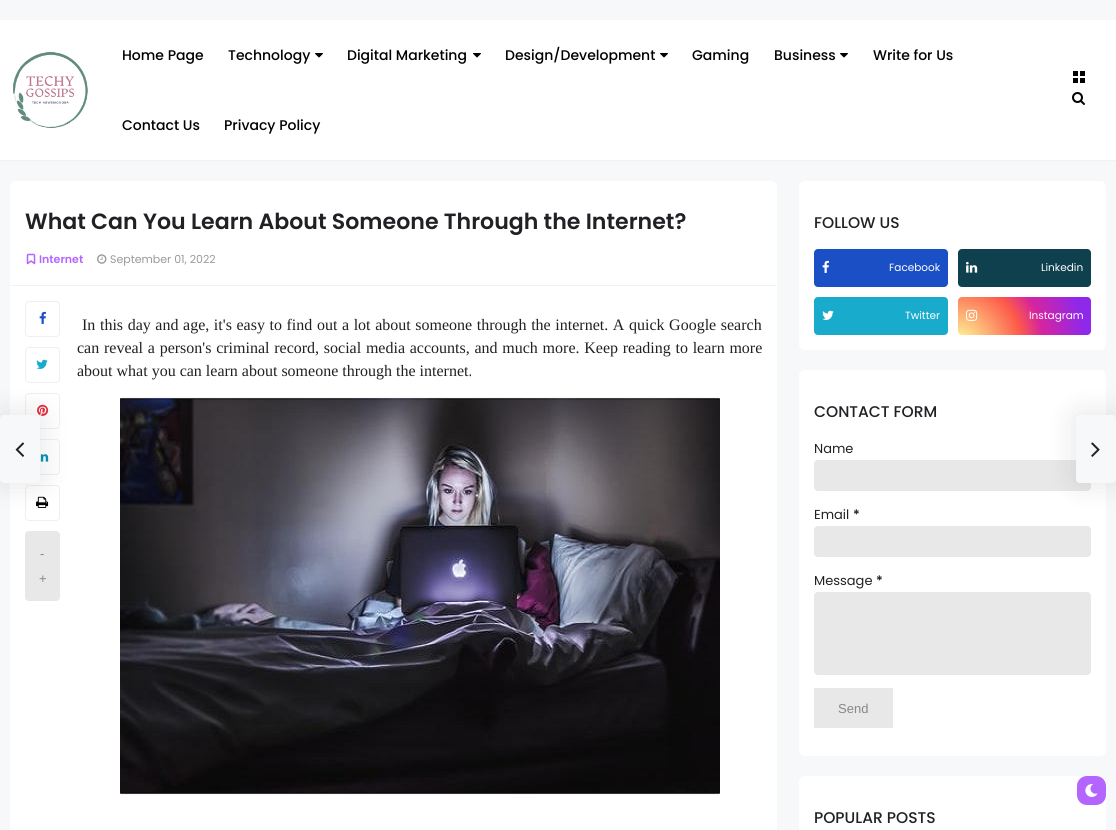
import math
import cairo

surface = cairo.ImageSurface(cairo.FORMAT_RGB24, 1116, 830)
c = cairo.Context(surface)
options = cairo.FontOptions()
options.set_hint_metrics(cairo.HINT_METRICS_OFF)
options.set_hint_style(cairo.HINT_STYLE_NONE)
c.set_font_options(options)
c.set_miter_limit(4)
def C(code):
 c.set_source_rgb(*(v / 255 for v in bytes.fromhex(code[-6:])))
def F(family, size, italic, bold):
 c.select_font_face(family, cairo.FONT_SLANT_ITALIC if italic else cairo.FONT_SLANT_NORMAL, cairo.FONT_WEIGHT_BOLD if bold else cairo.FONT_WEIGHT_NORMAL)
 c.set_font_size(size)
def T(x, y, s):
 c.move_to(x, y)
 c.show_text(s)
def L(x, y, s, letter, word):
 c.move_to(x, y)
 for ch in s:
  c.show_text(ch)
  c.rel_move_to(letter + word * (ch == ' '), 0)
def R(x, y, w, h):
 c.rectangle(x, y, w, h)
 c.fill()
def Q(x, y, w, h, r):
 c.new_sub_path()
 for i, (u, v) in enumerate([(x + w - r, y + h - r), (x + r, y + h - r), (x + r, y + r), (x + w - r, y + r)]):
  c.arc(u, v, r, i * math.pi / 2, (i + 1) * math.pi / 2)
 c.close_path()
def S(x, y, w, h, r, blur, alpha):
 c.push_group_with_content(cairo.CONTENT_ALPHA)
 c.set_operator(cairo.OPERATOR_SOURCE)
 for i in range(15, -16, -2):
  e = blur * i / 6
  if min(w, h) + 2 * e > 0:
   c.set_source_rgba(0, 0, 0, alpha * math.erfc((i - 1) / 8.5) / 2)
   Q(x - e, y - e, w + 2 * e, h + 2 * e, max(0, min(r + e + blur * .6, min(w, h) / 2 + e)))
   c.fill()
 c.mask(c.pop_group())
def I(path, x, y, w, h):
 c.save()
 c.set_source_surface(cairo.ImageSurface.create_from_png(path), x, y)
 c.rectangle(x, y, w, h)
 c.fill()
 c.restore()
C('f7f8f9')
c.paint()
C('ffffff')
R(0,20,1116,140)
C('f2f2f2')
R(0,160,1116,1)
I('1.png',10,50,80,80)
F('Poppins Medium',14,0,0)
C('000000')
T(122,60,'Home Page')
T(228,60,'Technology')
I('2.png',315,53,8,5)
T(347,60,'Digital Marketing')
I('2.png',473,53,8,5)
T(505,60,'Design/Development')
I('2.png',660,53,8,5)
T(692,60,'Gaming')
T(774,60,'Business')
I('2.png',840,53,8,5)
T(873,60,'Write for Us')
T(122,130,'Contact Us')
T(224,130,'Privacy Policy')
I('3.png',1073,71,12,12)
I('4.png',1072,92,13,13)
C('ffffff')
c.new_path()
c.move_to(16,181)
c.line_to(771,181)
c.curve_to(774.5,181,777,183.5,777,187)
c.line_to(777,286)
c.line_to(10,286)
c.line_to(10,187)
c.curve_to(10,183.5,12.5,181,16,181)
c.close_path()
c.fill()
C('f2f2f2')
R(10,285,767,1)
F('Poppins SemiBold',22.1,0,0)
C('202124')
T(25,229,'What Can You Learn About Someone Through the Internet?')
I('5.png',26,253,10,12)
F('Poppins SemiBold',11,0,0)
C('b464ff')
T(39,263,'Internet')
I('6.png',97,254,10,10)
F('Poppins',11,0,0)
C('999999')
T(110,263,'September 01, 2022')
C('ffffff')
R(10,286,767,544)
F('Liberation Serif',16,0,0)
C('202124')
L(82,330,'In this day and age, it\'s easy to find out a lot about someone through the internet. A quick Google search',0,.6)
L(77,353,'can reveal a person\'s criminal record, social media accounts, and much more. Keep reading to learn more',0,.75)
T(77,376,'about what you can learn about someone through the internet.')
I('7.png',120,397,600,398)
Q(25.5,301.5,34,35,3.5)
C('efefef')
c.set_line_width(1)
c.stroke()
I('8.png',39,311,7,13)
Q(25.5,347.5,34,35,3.5)
c.stroke()
I('9.png',36,359,12,10)
Q(25.5,393.5,34,35,3.5)
c.stroke()
I('10.png',37,404,12,12)
Q(25.5,439.5,34,35,3.5)
c.stroke()
I('11.png',40,454,9,8)
Q(25.5,485.5,34,35,3.5)
c.stroke()
I('12.png',36,496,13,12)
C('e8e8e8')
Q(25,531,35,70,4)
c.fill()
F('Liberation Sans',13,0,0)
C('888888')
T(40,558,'-')
T(39,583,'+')
C('ffffff')
Q(799,181,307,169,6)
c.fill()
F('Poppins Medium',15.5,0,0)
C('202124')
T(814,228,'FOLLOW US')
C('1a4fc5')
Q(814,249,134,38,4)
c.fill()
I('13.png',822,260,7,13)
F('Poppins',10.5,0,0)
C('ffffff')
T(889,271,'Facebook')
C('0f404e')
Q(958,249,133,38,4)
c.fill()
I('14.png',966,261,12,12)
C('ffffff')
T(1041,271,'Linkedin')
C('19abcc')
Q(814,297,134,38,4)
c.fill()
I('15.png',822,310,12,10)
C('ffffff')
T(905,319,'Twitter')
gradient = cairo.RadialGradient(958,346,0,958,346,142)
gradient.add_color_stop_rgba(0,0.992,0.957,0.592,1)
gradient.add_color_stop_rgba(.05,0.992,0.957,0.592,1)
gradient.add_color_stop_rgba(.45,0.992,0.349,0.286,1)
gradient.add_color_stop_rgba(.6,0.839,0.141,0.624,1)
gradient.add_color_stop_rgba(.9,0.557,0.157,0.922,1)
c.set_source(gradient)
Q(958,297,133,38,4)
c.fill()
I('16.png',966,309,12,12)
C('ffffff')
T(1029,319,'Instagram')
Q(799,370,307,386,6)
c.fill()
F('Poppins Medium',15.5,0,0)
C('202124')
T(814,417,'CONTACT FORM')
F('Poppins',13,0,0)
T(814,453,'Name')
C('e8e8e8')
Q(814,460,277,31,4)
c.fill()
C('202124')
T(814,519,'Email')
F('Poppins SemiBold',13,0,0)
T(853,519,'*')
C('e8e8e8')
Q(814,526,277,31,4)
c.fill()
F('Poppins',13,0,0)
C('202124')
T(814,585,'Message')
F('Poppins SemiBold',13,0,0)
T(876,585,'*')
C('e8e8e8')
Q(814,592,277,83,4)
c.fill()
R(814,688,79,40)
F('Liberation Sans',13,0,0)
C('888888')
T(838,713,'Send')
C('ffffff')
Q(799,776,307,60,6)
c.fill()
F('Poppins Medium',15.5,0,0)
C('202124')
T(814,823,'POPULAR POSTS')
C('000000')
S(-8,407,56,84,12,12.5,.07)
C('f7f8f9')
Q(0,415,40,68,4)
c.fill()
I('17.png',15,442,10,15)
C('000000')
S(1068,407,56,84,12,12.5,.07)
C('f7f8f9')
Q(1076,415,40,68,4)
c.fill()
I('18.png',1091,442,9,15)
C('b464ff')
Q(1077,776,29,29,10)
c.fill()
I('19.png',1085,784,13,13)
surface.write_to_png('o.png')
